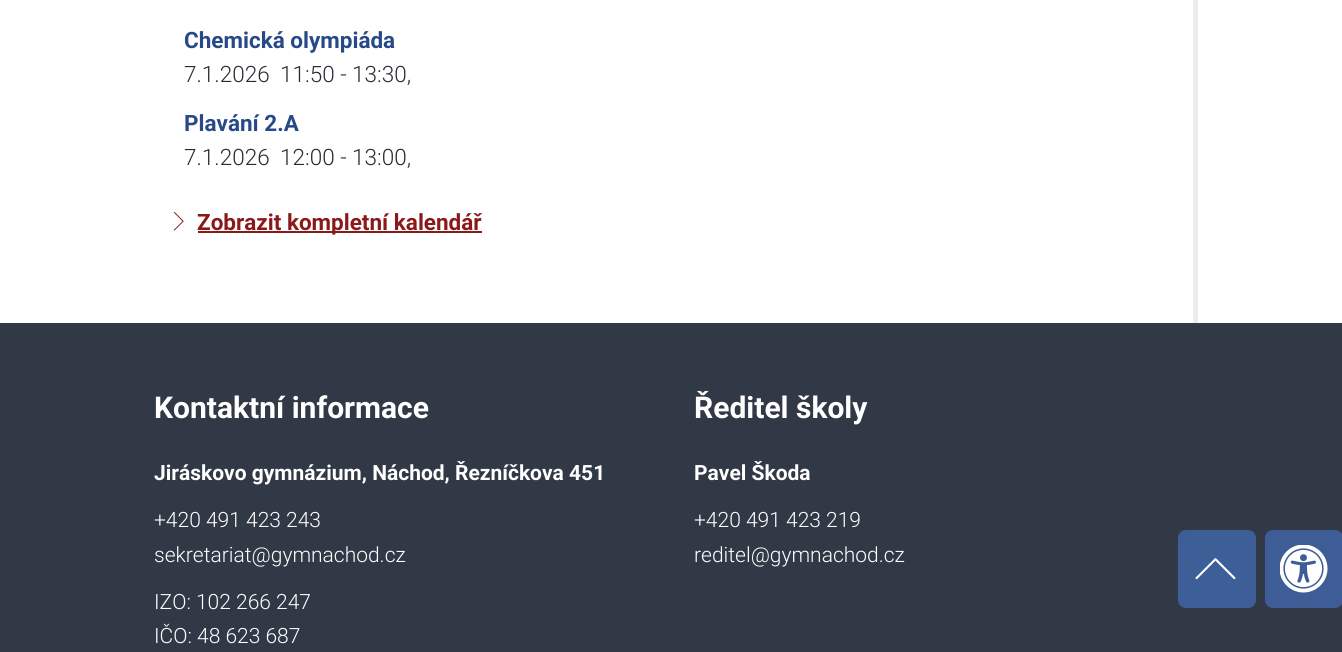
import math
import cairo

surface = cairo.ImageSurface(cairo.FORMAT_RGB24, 1342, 652)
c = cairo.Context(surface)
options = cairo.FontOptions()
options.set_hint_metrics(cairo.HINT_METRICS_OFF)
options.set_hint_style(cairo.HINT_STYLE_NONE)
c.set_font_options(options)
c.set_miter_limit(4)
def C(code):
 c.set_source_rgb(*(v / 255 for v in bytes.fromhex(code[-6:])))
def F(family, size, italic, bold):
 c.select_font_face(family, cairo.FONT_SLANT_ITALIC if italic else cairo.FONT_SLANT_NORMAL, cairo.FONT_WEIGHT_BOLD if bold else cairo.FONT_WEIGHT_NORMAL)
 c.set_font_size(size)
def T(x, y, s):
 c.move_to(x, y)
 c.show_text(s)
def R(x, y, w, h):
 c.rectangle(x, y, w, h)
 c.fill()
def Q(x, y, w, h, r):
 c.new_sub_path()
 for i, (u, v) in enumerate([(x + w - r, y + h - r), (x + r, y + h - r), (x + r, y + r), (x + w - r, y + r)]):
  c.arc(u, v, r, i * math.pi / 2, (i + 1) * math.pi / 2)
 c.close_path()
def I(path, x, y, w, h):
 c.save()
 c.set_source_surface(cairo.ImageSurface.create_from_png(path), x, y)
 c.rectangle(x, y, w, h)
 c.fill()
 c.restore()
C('ffffff')
c.paint()
C('ececec')
R(1193,0,5,323)
c.save()
c.rectangle(185,24,985,68)
c.clip()
F('Roboto',22.5,0,1)
C('274988')
T(184,48,'Chemická olympiáda')
c.restore()
F('Roboto Light',22.5,0,0)
C('282b32')
T(184,82,'7.1.2026')
T(280,82,'11:50 - 13:30,')
F('Roboto',22.5,0,1)
C('274988')
T(184,131,'Plavání 2.A')
F('Roboto Light',22.5,0,0)
C('282b32')
T(184,165,'7.1.2026')
T(280,165,'12:00 - 13:00,')
I('1.png',173,212,11,19)
C('8a1a1a')
R(198,231,284,2)
F('Roboto',22.5,0,1)
T(197,230,'Zobrazit kompletní kalendář')
C('323946')
R(0,323,1342,329)
F('Roboto',30,0,1)
C('ffffff')
T(154,418,'Kontaktní informace')
F('Roboto',21,0,1)
T(154,480,'Jiráskovo gymnázium, Náchod, Řezníčkova 451')
F('Roboto Light',21,0,0)
T(154,527,'+420 491 423 243')
T(154,562,'sekretariat@gymnachod.cz')
T(154,609,'IZO: 102 266 247')
T(154,643,'IČO: 48 623 687')
F('Roboto',30,0,1)
T(694,418,'Ředitel školy')
F('Roboto',21,0,1)
T(694,480,'Pavel Škoda')
F('Roboto Light',21,0,0)
T(694,527,'+420 491 423 219')
T(694,562,'reditel@gymnachod.cz')
C('3e5e97')
Q(1178,530,78,78,8)
c.fill()
I('2.png',1195,558,41,22)
C('3e5d97')
Q(1265,530,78,78,8)
c.fill()
I('3.png',1280,545,48,48)
surface.write_to_png('o.png')
